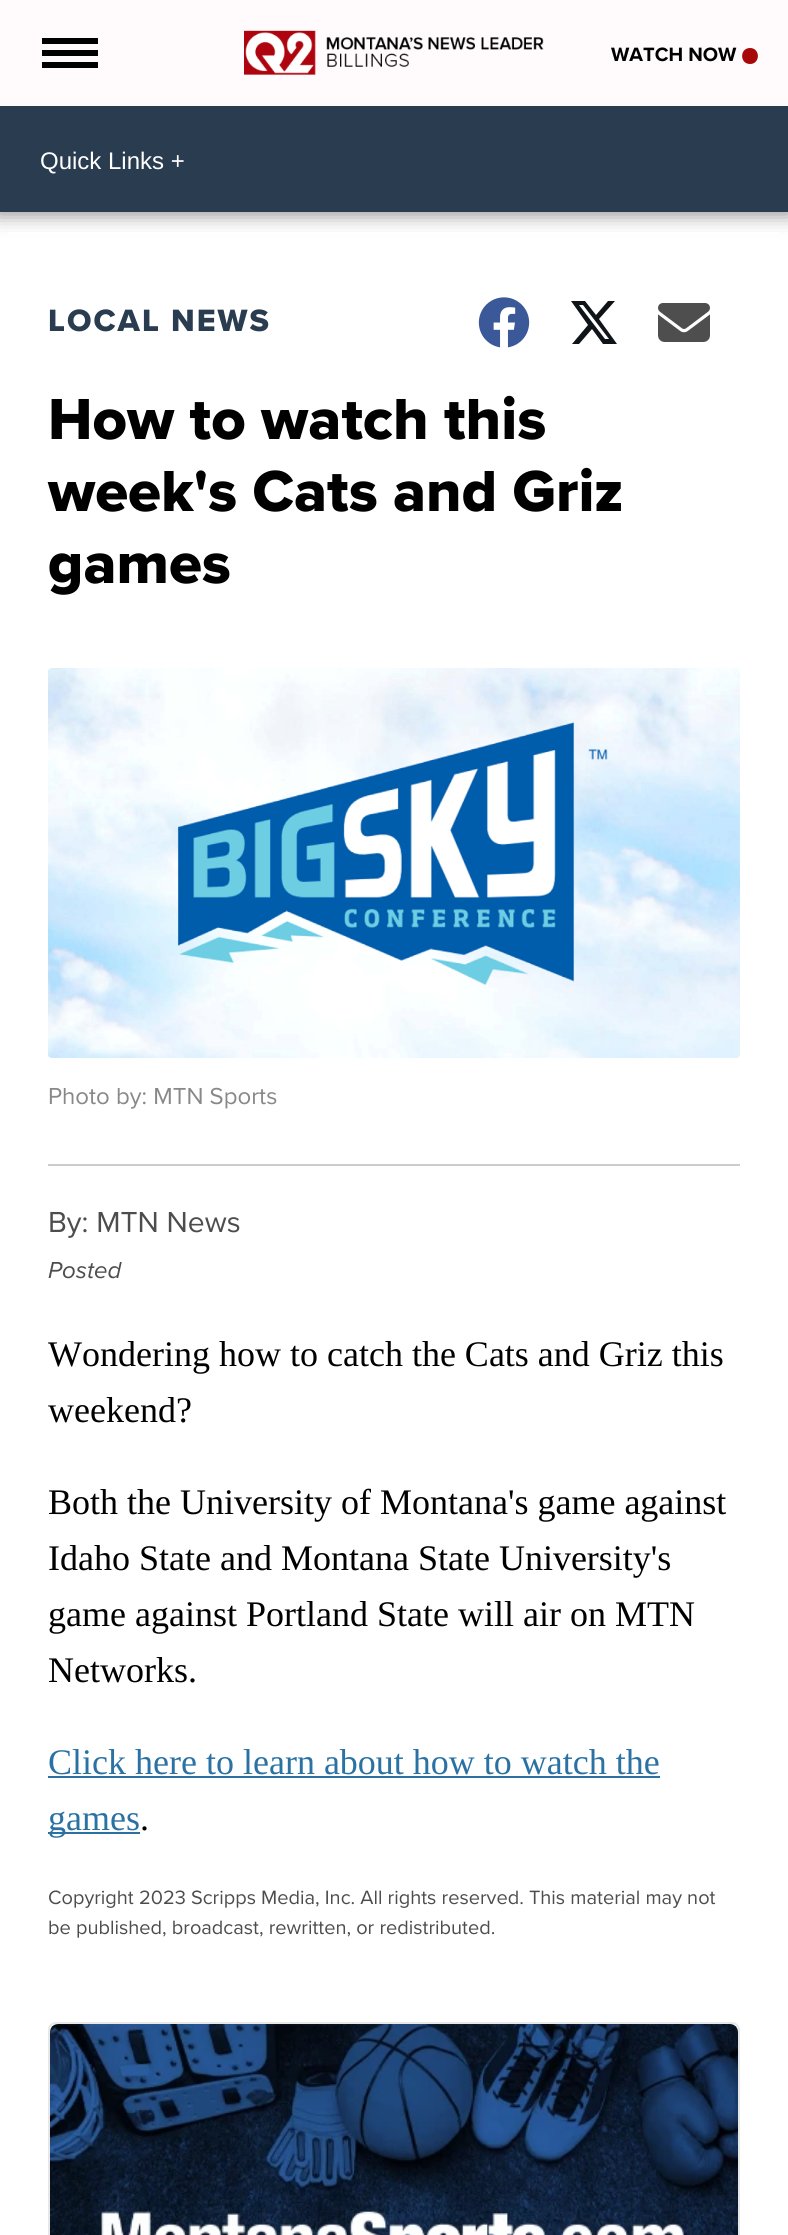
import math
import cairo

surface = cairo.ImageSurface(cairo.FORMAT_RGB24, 788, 2235)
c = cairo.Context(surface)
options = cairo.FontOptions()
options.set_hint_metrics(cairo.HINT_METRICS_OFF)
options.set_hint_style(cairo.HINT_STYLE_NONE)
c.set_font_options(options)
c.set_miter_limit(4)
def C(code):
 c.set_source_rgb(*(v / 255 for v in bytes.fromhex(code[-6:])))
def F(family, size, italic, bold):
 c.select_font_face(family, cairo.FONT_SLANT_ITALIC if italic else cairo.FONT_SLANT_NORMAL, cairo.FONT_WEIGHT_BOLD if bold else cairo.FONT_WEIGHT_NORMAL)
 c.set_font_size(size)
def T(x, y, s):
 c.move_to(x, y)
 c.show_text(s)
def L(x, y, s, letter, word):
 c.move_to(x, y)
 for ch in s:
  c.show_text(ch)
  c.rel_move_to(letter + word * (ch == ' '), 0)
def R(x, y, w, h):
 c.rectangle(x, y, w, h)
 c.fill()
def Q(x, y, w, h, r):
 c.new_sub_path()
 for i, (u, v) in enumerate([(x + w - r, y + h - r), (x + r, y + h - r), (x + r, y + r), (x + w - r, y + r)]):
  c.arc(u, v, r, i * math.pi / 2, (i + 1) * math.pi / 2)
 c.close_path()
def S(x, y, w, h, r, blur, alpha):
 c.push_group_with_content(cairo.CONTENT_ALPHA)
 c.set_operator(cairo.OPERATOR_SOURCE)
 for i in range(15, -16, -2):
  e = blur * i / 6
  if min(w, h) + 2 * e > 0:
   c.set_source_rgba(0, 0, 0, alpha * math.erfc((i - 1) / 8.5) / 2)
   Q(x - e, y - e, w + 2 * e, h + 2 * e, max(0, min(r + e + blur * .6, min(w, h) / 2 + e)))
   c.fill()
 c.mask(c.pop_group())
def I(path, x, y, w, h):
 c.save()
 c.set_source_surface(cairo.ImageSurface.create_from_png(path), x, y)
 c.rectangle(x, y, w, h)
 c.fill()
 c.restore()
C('ffffff')
c.paint()
C('616161')
S(-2,-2,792,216,0,10,.76)
C('fffbfd')
R(0,0,788,106)
C('000000')
R(42,38,56,6)
R(42,50,56,6)
R(42,62,56,6)
I('1.png',244,30,300,45)
F('Proxima Nova',20,0,1)
T(611,61,'WATCH NOW')
C('a70808')
c.new_path()
c.move_to(750,64)
c.curve_to(760.5,64,760.5,48,750,48)
c.curve_to(739.5,48,739.5,64,750,64)
c.close_path()
c.fill()
C('2a3c4f')
R(0,106,788,106)
F('Liberation Sans',24,0,0)
C('ffffff')
T(40,169,'Quick Links +')
R(8,232,772,2)
F('Proxima Nova ExtraBold',32,0,0)
C('2a3c4f')
L(48,331,'LOCAL NEWS',2,0)
I('2.png',478,297,52,51)
C('0f1419')
c.new_path()
c.move_to(608,301)
c.line_to(615,301)
c.line_to(599,319)
c.line_to(617,344)
c.line_to(603,344)
c.line_to(592,329)
c.line_to(579,344)
c.line_to(572,344)
c.line_to(588,325)
c.line_to(571,301)
c.line_to(585,301)
c.line_to(596,315)
c.close_path()
c.move_to(605,339)
c.line_to(609,339)
c.line_to(583,305)
c.line_to(579,305)
c.close_path()
c.fill()
I('3.png',658,303,52,39)
F('Proxima Nova ExtraBold',60,0,0)
C('000000')
T(48,439,'How to watch this')
T(48,511,'week\'s Cats and Griz')
T(48,583,'games')
C('cccccc')
R(48,1164,692,2)
I('4.png',48,668,692,390)
F('Proxima Nova',24,0,0)
C('888888')
T(48,1104,'Photo by: MTN Sports')
F('Proxima Nova',30,0,0)
C('4d4d4d')
T(48,1232,'By: MTN News')
F('Proxima Nova',24,1,0)
T(48,1278,'Posted')
F('Liberation Serif',36,0,0)
C('000000')
T(48,1366,'Wondering how to catch the Cats and Griz this')
T(48,1422,'weekend?')
T(48,1514,'Both the University of Montana\'s game against')
T(48,1570,'Idaho State and Montana State University\'s')
T(48,1626,'game against Portland State will air on MTN')
T(48,1682,'Networks.')
C('2972a3')
T(48,1774,'Click here to learn about how to watch the')
R(48,1776,612,2)
R(48,1832,92,2)
T(48,1830,'games')
C('000000')
T(140,1830,'.')
F('Proxima Nova',20,0,0)
C('4d4d4d')
T(48,1904,'Copyright 2023 Scripps Media, Inc. All rights reserved. This material may not')
T(48,1934,'be published, broadcast, rewritten, or redistributed.')
Q(49,2023,690,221,7)
C('e7e7e7')
c.stroke()
I('5.png',50,2024,688,211)
surface.write_to_png('o.png')
